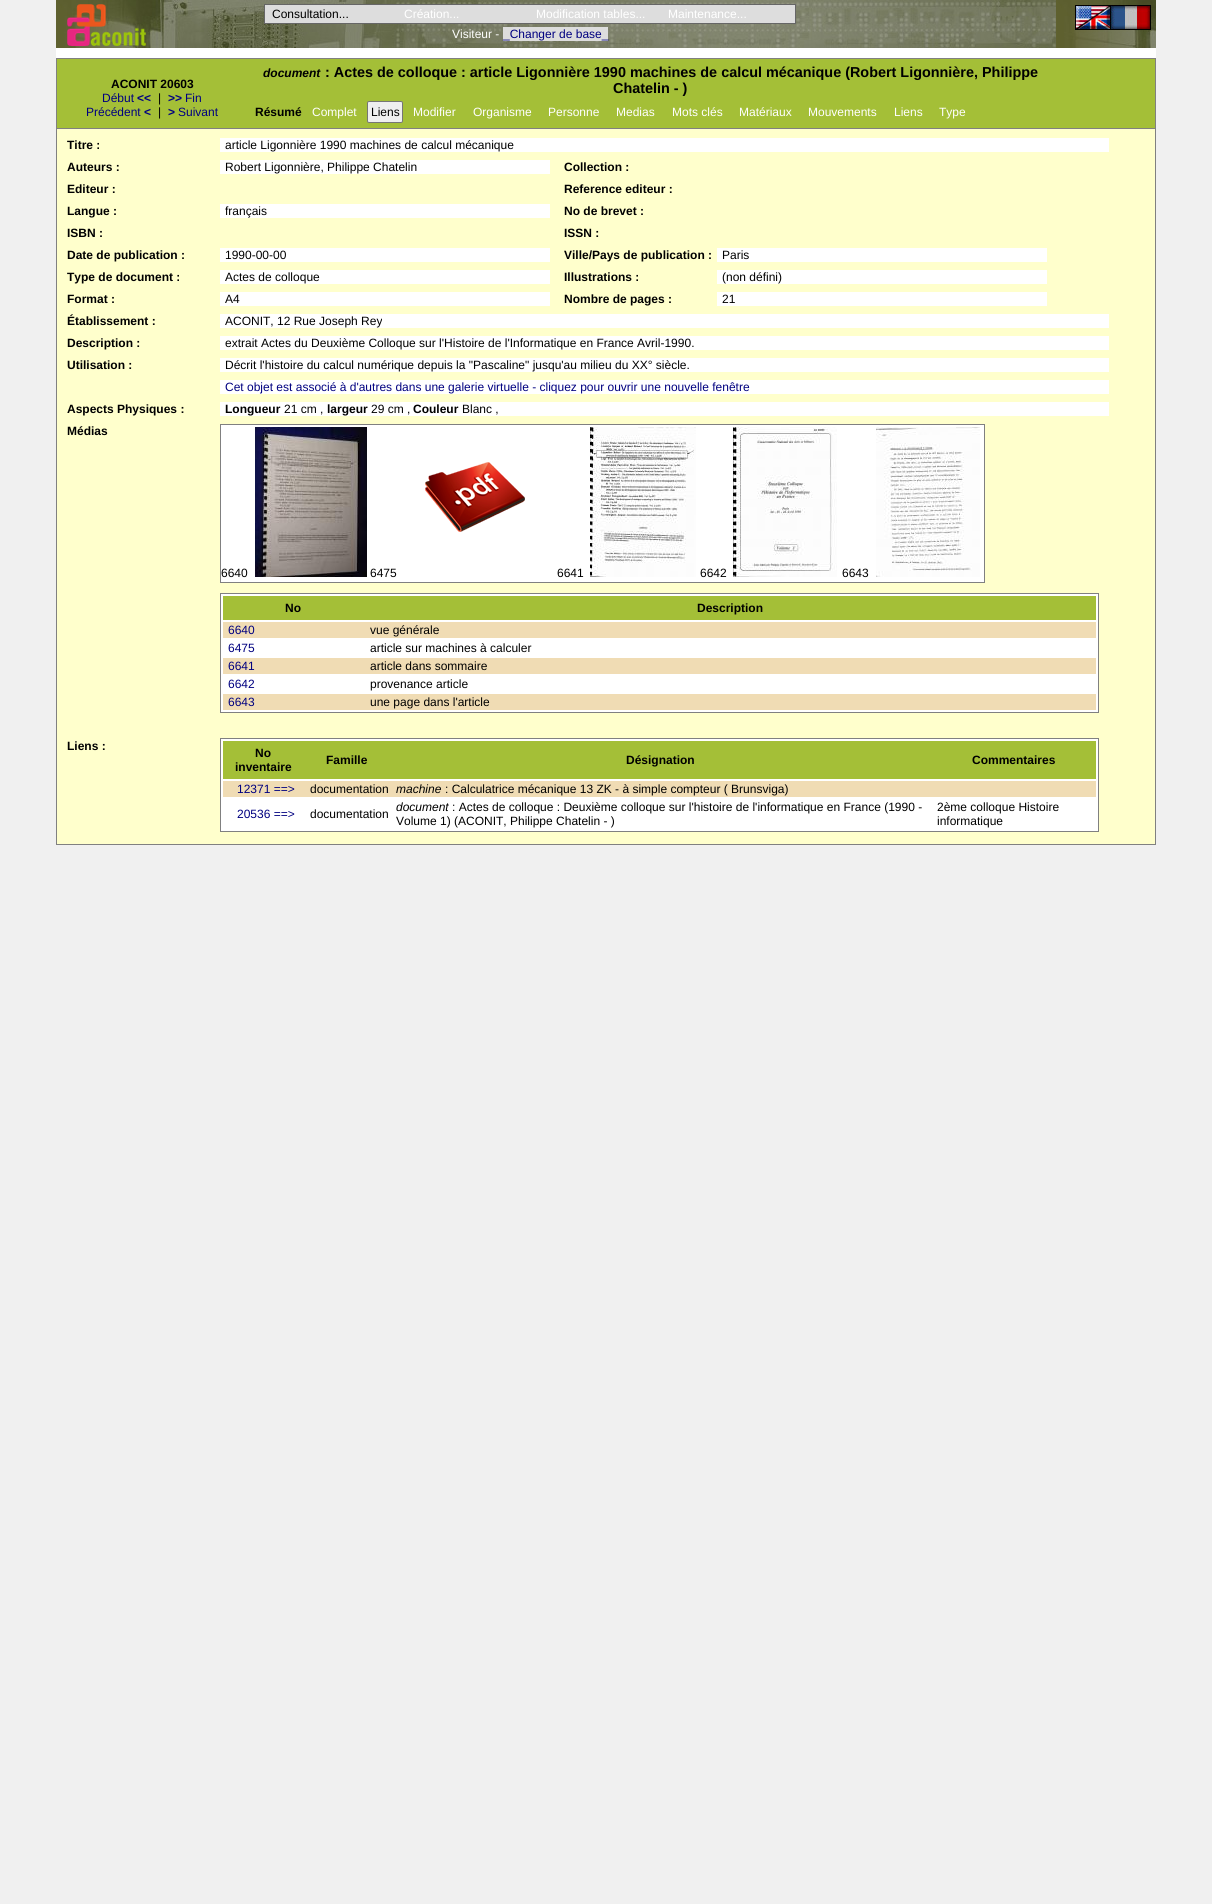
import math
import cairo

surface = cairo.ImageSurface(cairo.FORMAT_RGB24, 1212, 1904)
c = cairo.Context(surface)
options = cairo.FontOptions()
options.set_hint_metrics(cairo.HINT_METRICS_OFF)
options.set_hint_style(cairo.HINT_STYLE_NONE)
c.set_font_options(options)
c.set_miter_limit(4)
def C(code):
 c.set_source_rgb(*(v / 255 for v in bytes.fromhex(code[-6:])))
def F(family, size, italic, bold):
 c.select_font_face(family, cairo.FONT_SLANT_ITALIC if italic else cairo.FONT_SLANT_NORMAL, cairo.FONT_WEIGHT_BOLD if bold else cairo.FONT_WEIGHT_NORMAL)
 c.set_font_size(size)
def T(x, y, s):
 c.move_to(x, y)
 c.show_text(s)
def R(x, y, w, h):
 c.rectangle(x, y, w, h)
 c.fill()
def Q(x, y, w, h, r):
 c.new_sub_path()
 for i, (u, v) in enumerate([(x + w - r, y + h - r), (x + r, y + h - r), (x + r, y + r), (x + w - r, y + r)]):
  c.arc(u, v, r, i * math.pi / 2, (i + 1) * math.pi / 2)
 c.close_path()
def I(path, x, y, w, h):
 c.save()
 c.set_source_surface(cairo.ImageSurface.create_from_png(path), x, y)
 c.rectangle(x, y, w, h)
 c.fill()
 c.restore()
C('f0f0f0')
c.paint()
C('ffffff')
R(56,48,1100,10)
I('1.png',56,0,1100,48)
I('2.png',67,4,79,42)
C('dddddd')
c.rectangle(264.5,4.5,531,19)
c.fill_preserve()
C('666666')
c.set_line_width(1)
c.stroke()
F('Liberation Sans',12,0,0)
C('000000')
T(272,18,'Consultation...')
C('ffffff')
T(404,18,'Création...')
T(536,18,'Modification tables...')
T(668,18,'Maintenance...')
T(452,38,'Visiteur -')
C('dddddd')
R(503,27,105,14)
C('000080')
T(503,38,'_Changer de base_')
I('3.png',1075,5,76,25)
C('a4bf37')
c.rectangle(56.5,58.5,1099,70)
c.fill_preserve()
C('808080')
c.stroke()
F('Liberation Sans',12,0,1)
C('000000')
T(111,88,'ACONIT 20603')
F('Liberation Sans',12,0,0)
C('000080')
T(102,102,'Début')
F('Liberation Sans',12,0,1)
T(137,102,'<<')
F('Liberation Sans',12,0,0)
C('000000')
T(158,102,'|')
F('Liberation Sans',12,0,1)
C('000080')
T(168,102,'>>')
F('Liberation Sans',12,0,0)
T(185,102,'Fin')
T(86,116,'Précédent')
F('Liberation Sans',12,0,1)
T(144,116,'<')
F('Liberation Sans',12,0,0)
C('000000')
T(158,116,'|')
F('Liberation Sans',12,0,1)
C('000080')
T(168,116,'>')
F('Liberation Sans',12,0,0)
T(178,116,'Suivant')
F('Liberation Sans',12,1,1)
C('000000')
T(263,77,'document')
F('Liberation Sans',14.4,0,1)
T(325,77,': Actes de colloque : article Ligonnière 1990 machines de calcul mécanique (Robert Ligonnière, Philippe')
T(613,93,'Chatelin - )')
F('Liberation Sans',12,0,1)
T(255,116,'Résumé')
F('Liberation Sans',12,0,0)
C('ffffff')
T(312,116,'Complet')
C('efefef')
Q(367.5,101.5,35,21,1.5)
c.fill_preserve()
C('767676')
c.stroke()
C('000000')
T(371,116,'Liens')
C('ffffff')
T(413,116,'Modifier')
T(473,116,'Organisme')
T(548,116,'Personne')
T(616,116,'Medias')
T(672,116,'Mots clés')
T(739,116,'Matériaux')
T(808,116,'Mouvements')
T(894,116,'Liens')
T(939,116,'Type')
C('ffffcc')
R(57,129,1098,715)
C('808080')
R(1155,129,1,716)
R(56,844,1100,1)
R(56,129,1,716)
F('Liberation Sans',12,0,1)
C('000000')
T(67,149,'Titre :')
C('ffffff')
R(220,138,889,14)
F('Liberation Sans',12,0,0)
C('000000')
T(225,149,'article Ligonnière 1990 machines de calcul mécanique')
F('Liberation Sans',12,0,1)
T(67,171,'Auteurs :')
C('ffffff')
R(220,160,330,14)
F('Liberation Sans',12,0,0)
C('000000')
T(225,171,'Robert Ligonnière, Philippe Chatelin')
F('Liberation Sans',12,0,1)
T(564,171,'Collection :')
T(67,193,'Editeur :')
T(564,193,'Reference editeur :')
T(67,215,'Langue :')
C('ffffff')
R(220,204,330,14)
F('Liberation Sans',12,0,0)
C('000000')
T(225,215,'français')
F('Liberation Sans',12,0,1)
T(564,215,'No de brevet :')
T(67,237,'ISBN :')
T(564,237,'ISSN :')
T(67,259,'Date de publication :')
C('ffffff')
R(220,248,330,14)
F('Liberation Sans',12,0,0)
C('000000')
T(225,259,'1990-00-00')
F('Liberation Sans',12,0,1)
T(564,259,'Ville/Pays de publication :')
C('ffffff')
R(717,248,330,14)
F('Liberation Sans',12,0,0)
C('000000')
T(722,259,'Paris')
F('Liberation Sans',12,0,1)
T(67,281,'Type de document :')
C('ffffff')
R(220,270,330,14)
F('Liberation Sans',12,0,0)
C('000000')
T(225,281,'Actes de colloque')
F('Liberation Sans',12,0,1)
T(564,281,'Illustrations :')
C('ffffff')
R(717,270,330,14)
F('Liberation Sans',12,0,0)
C('000000')
T(722,281,'(non défini)')
F('Liberation Sans',12,0,1)
T(67,303,'Format :')
C('ffffff')
R(220,292,330,14)
F('Liberation Sans',12,0,0)
C('000000')
T(225,303,'A4')
F('Liberation Sans',12,0,1)
T(564,303,'Nombre de pages :')
C('ffffff')
R(717,292,330,14)
F('Liberation Sans',12,0,0)
C('000000')
T(722,303,'21')
F('Liberation Sans',12,0,1)
T(67,325,'Établissement :')
C('ffffff')
R(220,314,889,14)
F('Liberation Sans',12,0,0)
C('000000')
T(225,325,'ACONIT, 12 Rue Joseph Rey')
F('Liberation Sans',12,0,1)
T(67,347,'Description :')
C('ffffff')
R(220,336,889,14)
F('Liberation Sans',12,0,0)
C('000000')
T(225,347,'extrait Actes du Deuxième Colloque sur l\'Histoire de l\'Informatique en France Avril-1990.')
F('Liberation Sans',12,0,1)
T(67,369,'Utilisation :')
C('ffffff')
R(220,358,889,14)
F('Liberation Sans',12,0,0)
C('000000')
T(225,369,'Décrit l\'histoire du calcul numérique depuis la "Pascaline" jusqu\'au milieu du XX° siècle.')
C('ffffff')
R(220,380,889,14)
C('000080')
T(225,391,'Cet objet est associé à d\'autres dans une galerie virtuelle - cliquez pour ouvrir une nouvelle fenêtre')
F('Liberation Sans',12,0,1)
C('000000')
T(67,413,'Aspects Physiques :')
C('ffffff')
R(220,402,889,14)
C('000000')
T(225,413,'Longueur')
F('Liberation Sans',12,0,0)
T(284,413,'21 cm ,')
F('Liberation Sans',12,0,1)
T(327,413,'largeur')
F('Liberation Sans',12,0,0)
T(371,413,'29 cm ,')
F('Liberation Sans',12,0,1)
T(413,413,'Couleur')
F('Liberation Sans',12,0,0)
T(462,413,'Blanc ,')
F('Liberation Sans',12,0,1)
T(67,435,'Médias')
C('ffffff')
c.rectangle(220.5,424.5,764,158)
c.fill_preserve()
C('808080')
c.stroke()
I('4.png',255,427,112,150)
I('5.png',425,462,100,70)
I('6.png',590,427,106,150)
I('7.png',733,427,104,150)
I('8.png',876,427,104,150)
F('Liberation Sans',12,0,0)
C('000000')
T(221,577,'6640')
T(370,577,'6475')
T(557,577,'6641')
T(700,577,'6642')
T(842,577,'6643')
C('ffffff')
c.rectangle(220.5,593.5,878,119)
c.fill_preserve()
C('808080')
c.stroke()
C('a4bf37')
R(223,596,873,24)
F('Liberation Sans',12,0,1)
C('000000')
T(285,612,'No')
T(697,612,'Description')
C('f0dcb4')
R(223,622,873,16)
F('Liberation Sans',12,0,0)
C('000080')
T(228,634,'6640')
C('000000')
T(370,634,'vue générale')
C('000080')
T(228,652,'6475')
C('000000')
T(370,652,'article sur machines à calculer')
C('f0dcb4')
R(223,658,873,16)
C('000080')
T(228,670,'6641')
C('000000')
T(370,670,'article dans sommaire')
C('000080')
T(228,688,'6642')
C('000000')
T(370,688,'provenance article')
C('f0dcb4')
R(223,694,873,16)
C('000080')
T(228,706,'6643')
C('000000')
T(370,706,'une page dans l\'article')
F('Liberation Sans',12,0,1)
T(67,750,'Liens :')
C('ffffff')
c.rectangle(220.5,738.5,878,93)
c.fill_preserve()
C('808080')
c.stroke()
C('a4bf37')
R(223,741,873,38)
C('000000')
T(255,757,'No')
T(235,771,'inventaire')
T(326,764,'Famille')
T(626,764,'Désignation')
T(972,764,'Commentaires')
C('f0dcb4')
R(223,781,873,16)
F('Liberation Sans',12,0,0)
C('000080')
T(237,793,'12371 ==>')
C('000000')
T(310,793,'documentation')
F('Liberation Sans',12,1,0)
T(396,793,'machine')
F('Liberation Sans',12,0,0)
T(445,793,': Calculatrice mécanique 13 ZK - à simple compteur ( Brunsviga)')
C('000080')
T(237,818,'20536 ==>')
C('000000')
T(310,818,'documentation')
F('Liberation Sans',12,1,0)
T(396,811,'document')
F('Liberation Sans',12,0,0)
T(452,811,': Actes de colloque : Deuxième colloque sur l\'histoire de l\'informatique en France (1990 -')
T(396,825,'Volume 1) (ACONIT, Philippe Chatelin - )')
T(937,811,'2ème colloque Histoire')
T(937,825,'informatique')
surface.write_to_png('o.png')
